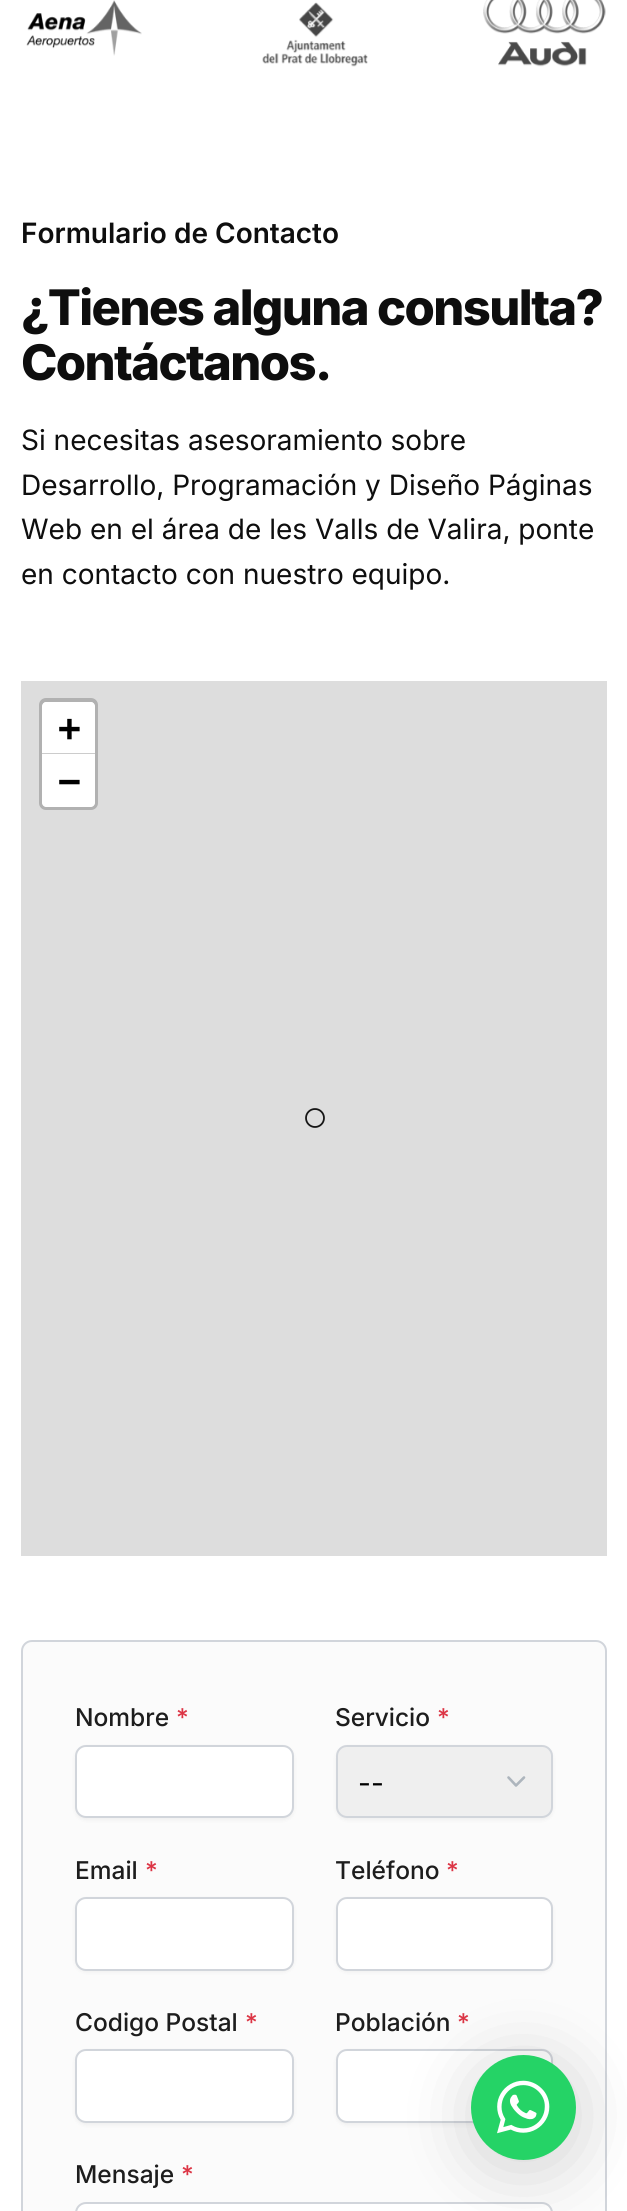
import math
import cairo

surface = cairo.ImageSurface(cairo.FORMAT_RGB24, 627, 2211)
c = cairo.Context(surface)
options = cairo.FontOptions()
options.set_hint_metrics(cairo.HINT_METRICS_OFF)
options.set_hint_style(cairo.HINT_STYLE_NONE)
c.set_font_options(options)
c.set_miter_limit(4)
def C(code):
 c.set_source_rgb(*(v / 255 for v in bytes.fromhex(code[-6:])))
def F(family, size, italic, bold):
 c.select_font_face(family, cairo.FONT_SLANT_ITALIC if italic else cairo.FONT_SLANT_NORMAL, cairo.FONT_WEIGHT_BOLD if bold else cairo.FONT_WEIGHT_NORMAL)
 c.set_font_size(size)
def T(x, y, s):
 c.move_to(x, y)
 c.show_text(s)
def L(x, y, s, letter, word):
 c.move_to(x, y)
 for ch in s:
  c.show_text(ch)
  c.rel_move_to(letter + word * (ch == ' '), 0)
def R(x, y, w, h):
 c.rectangle(x, y, w, h)
 c.fill()
def Q(x, y, w, h, r):
 c.new_sub_path()
 for i, (u, v) in enumerate([(x + w - r, y + h - r), (x + r, y + h - r), (x + r, y + r), (x + w - r, y + r)]):
  c.arc(u, v, r, i * math.pi / 2, (i + 1) * math.pi / 2)
 c.close_path()
def S(x, y, w, h, r, blur, alpha):
 c.push_group_with_content(cairo.CONTENT_ALPHA)
 c.set_operator(cairo.OPERATOR_SOURCE)
 for i in range(15, -16, -2):
  e = blur * i / 6
  if min(w, h) + 2 * e > 0:
   c.set_source_rgba(0, 0, 0, alpha * math.erfc((i - 1) / 8.5) / 2)
   Q(x - e, y - e, w + 2 * e, h + 2 * e, max(0, min(r + e + blur * .6, min(w, h) / 2 + e)))
   c.fill()
 c.mask(c.pop_group())
def I(path, x, y, w, h):
 c.save()
 c.set_source_surface(cairo.ImageSurface.create_from_png(path), x, y)
 c.rectangle(x, y, w, h)
 c.fill()
 c.restore()
C('ffffff')
c.paint()
I('1.png',26,0,116,56)
I('2.png',262,2,106,65)
I('3.png',483,0,123,67)
F('Inter SemiBold',28,0,0)
C('0e0e0e')
T(21,243,'Formulario de Contacto')
F('Inter ExtraBold',49,0,0)
L(21,325,'¿Tienes alguna consulta?',-1.6,0)
L(21,380,'Contáctanos.',-1.6,0)
F('Inter',28,0,0)
T(21,450,'Si necesitas asesoramiento sobre')
T(21,495,'Desarrollo, Programación y Diseño Páginas')
T(21,539,'Web en el área de les Valls de Valira, ponte')
T(21,584,'en contacto con nuestro equipo.')
C('dddddd')
R(21,681,586,875)
Q(41,700,55,108,5)
C('b1b1b1')
c.set_line_width(4)
c.stroke()
C('ffffff')
c.new_path()
c.move_to(46,702)
c.line_to(91,702)
c.curve_to(93,702,95,704,95,706)
c.line_to(95,754)
c.line_to(42,754)
c.line_to(42,706)
c.curve_to(42,704,44,702,46,702)
c.close_path()
c.fill()
C('cccccc')
R(42,753,53,1)
F('DejaVu Sans Mono',38,0,1)
C('000000')
T(58,741,'+')
C('ffffff')
c.new_path()
c.move_to(42,754)
c.line_to(95,754)
c.line_to(95,803)
c.curve_to(95,805,93,807,91,807)
c.line_to(46,807)
c.curve_to(44,807,42,805,42,803)
c.close_path()
c.fill()
C('000000')
T(58,794,'−')
c.new_path()
c.arc(315,1118,9,0,2 * math.pi)
C('151515')
c.set_line_width(1.8)
c.stroke()
C('fbfbfb')
Q(22,1641,584,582,10)
c.fill_preserve()
C('d1d5db')
c.set_line_width(2)
c.stroke()
F('Inter Medium',24.5,0,0)
C('1d1d1d')
T(75,1726,'Nombre')
C('dc3545')
T(176,1726,'*')
C('000000')
S(75,1747,219,73,11,2,.05)
C('ffffff')
Q(76,1746,217,71,10)
c.fill_preserve()
C('d1d5db')
c.stroke()
C('1d1d1d')
T(335,1726,'Servicio')
C('dc3545')
T(437,1726,'*')
C('000000')
S(336,1747,217,73,11,2,.05)
C('efefef')
Q(338,1747,213,70,9)
c.fill()
c.new_path()
c.move_to(508.5,1777.5)
c.line_to(516,1785.5)
c.line_to(524,1777.5)
C('adb5bd')
c.set_line_width(2.6)
c.set_line_cap(cairo.LINE_CAP_ROUND)
c.set_line_join(cairo.LINE_JOIN_ROUND)
c.stroke()
Q(337,1746,215,71,10)
C('d1d5db')
c.set_line_width(2)
c.set_line_cap(cairo.LINE_CAP_BUTT)
c.set_line_join(cairo.LINE_JOIN_MITER)
c.stroke()
F('Inter',28,0,0)
C('000000')
T(358,1793,'--')
F('Inter Medium',24.5,0,0)
C('1d1d1d')
T(75,1879,'Email')
C('dc3545')
T(145,1879,'*')
C('000000')
S(75,1899,219,73,11,2,.05)
C('ffffff')
Q(76,1898,217,72,10)
c.fill_preserve()
C('d1d5db')
c.stroke()
C('1d1d1d')
T(335,1879,'Teléfono')
C('dc3545')
T(446,1879,'*')
C('000000')
S(336,1899,217,73,11,2,.05)
C('ffffff')
Q(337,1898,215,72,10)
c.fill_preserve()
C('d1d5db')
c.stroke()
C('1d1d1d')
T(75,2031,'Codigo Postal')
C('dc3545')
T(245,2031,'*')
C('000000')
S(75,2051,219,74,11,2,.05)
C('ffffff')
Q(76,2050,217,72,10)
c.fill_preserve()
C('d1d5db')
c.stroke()
C('1d1d1d')
T(335,2031,'Población')
C('dc3545')
T(457,2031,'*')
C('000000')
S(336,2051,217,74,11,2,.05)
C('ffffff')
Q(337,2050,215,72,10)
c.fill_preserve()
C('d1d5db')
c.stroke()
C('1d1d1d')
T(75,2183,'Mensaje')
C('dc3545')
T(181,2183,'*')
C('ffffff')
Q(77,2203,474,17,9)
c.fill()
Q(76,2203,476,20,10)
C('d1d5db')
c.stroke()
C('000000')
S(471,2063,105,105,52.5,35,.16)
C('25d366')
c.arc(523.5,2107.5,52.5,0,2 * math.pi)
c.fill()
I('4.png',497,2080,53,54)
surface.write_to_png('o.png')
